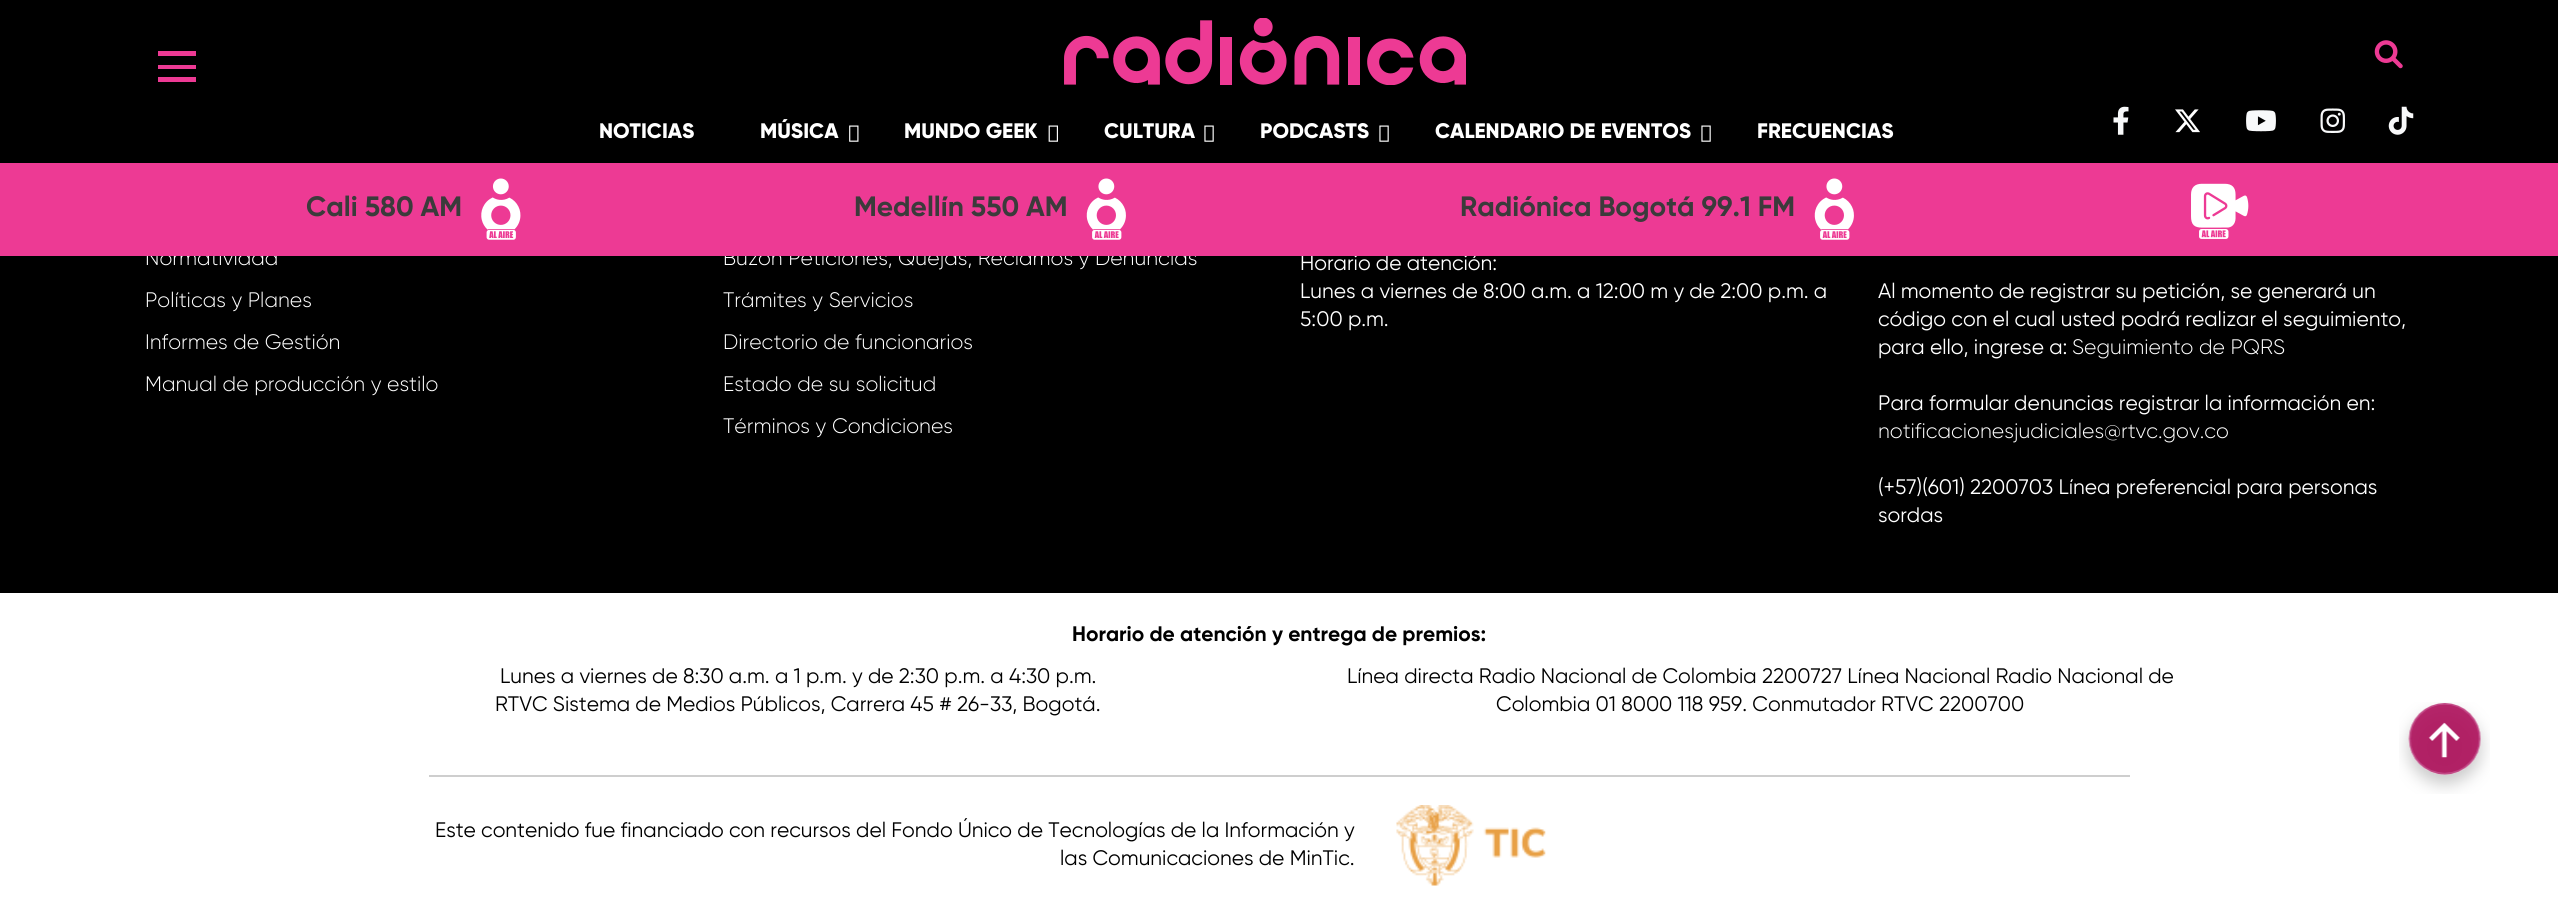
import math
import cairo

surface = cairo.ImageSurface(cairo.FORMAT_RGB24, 2558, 913)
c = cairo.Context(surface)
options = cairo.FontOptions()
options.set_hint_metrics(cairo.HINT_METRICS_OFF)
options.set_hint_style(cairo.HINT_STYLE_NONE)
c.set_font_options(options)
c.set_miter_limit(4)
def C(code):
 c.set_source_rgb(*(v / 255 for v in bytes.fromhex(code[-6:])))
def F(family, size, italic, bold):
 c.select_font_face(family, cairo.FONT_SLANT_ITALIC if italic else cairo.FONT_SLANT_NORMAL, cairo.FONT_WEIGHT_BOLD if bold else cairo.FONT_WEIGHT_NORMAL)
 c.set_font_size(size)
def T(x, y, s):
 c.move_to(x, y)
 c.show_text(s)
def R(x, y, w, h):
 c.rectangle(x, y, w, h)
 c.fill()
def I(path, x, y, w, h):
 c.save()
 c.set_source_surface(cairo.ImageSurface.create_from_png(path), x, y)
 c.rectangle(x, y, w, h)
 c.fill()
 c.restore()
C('000000')
c.paint()
C('ed3a94')
R(158,65,38,4)
R(158,51,38,5)
R(158,77,38,5)
I('1.png',2374,40,29,29)
I('2.png',2113,106,16,29)
I('3.png',2175,109,25,24)
I('4.png',2246,110,30,22)
I('5.png',2320,108,25,25)
I('6.png',2388,106,26,29)
I('7.png',1064,18,402,67)
F('Gilroy ExtraBold',21,0,0)
C('ffffff')
T(599,138,'NOTICIAS')
T(760,138,'MÚSICA')
I('8.png',849,125,10,17)
T(904,138,'MUNDO GEEK')
I('9.png',1048,125,10,17)
T(1104,138,'CULTURA')
I('10.png',1204,125,10,17)
T(1260,138,'PODCASTS')
I('10.png',1379,125,10,17)
T(1435,138,'CALENDARIO DE EVENTOS')
I('10.png',1701,125,10,17)
T(1757,138,'FRECUENCIAS')
F('Gilroy Light',21,0,0)
T(145,265,'Normatividad')
T(723,265,'Buzón Peticiones, Quejas, Reclamos y Denuncias')
F('Gilroy',21,0,0)
T(1300,270,'Horario de atención:')
C('ed3a94')
R(0,163,2558,93)
F('Gilroy',28,0,1)
C('3b3b3b')
T(306,216,'Cali 580 AM')
I('11.png',481,178,40,62)
T(854,216,'Medellín 550 AM')
I('12.png',1086,178,40,62)
T(1460,216,'Radiónica Bogotá 99.1 FM')
I('12.png',1814,178,40,62)
I('13.png',2191,183,58,56)
F('Gilroy Light',21,0,0)
C('ffffff')
T(145,307,'Políticas y Planes')
T(145,349,'Informes de Gestión')
T(145,391,'Manual de producción y estilo')
T(723,307,'Trámites y Servicios')
T(723,349,'Directorio de funcionarios')
T(723,391,'Estado de su solicitud')
T(723,433,'Términos y Condiciones')
F('Gilroy',21,0,0)
T(1300,298,'Lunes a viernes de 8:00 a.m. a 12:00 m y de 2:00 p.m. a')
T(1300,326,'5:00 p.m.')
T(1878,298,'Al momento de registrar su petición, se generará un')
T(1878,326,'código con el cual usted podrá realizar el seguimiento,')
T(1878,354,'para ello, ingrese a:')
F('Gilroy Light',21,0,0)
T(2072,354,'Seguimiento de PQRS')
F('Gilroy',21,0,0)
T(1878,410,'Para formular denuncias registrar la información en:')
F('Gilroy Light',21,0,0)
T(1878,438,'notificacionesjudiciales@rtvc.gov.co')
F('Gilroy',21,0,0)
T(1878,494,'(+57)(601) 2200703 Línea preferencial para personas')
T(1878,522,'sordas')
R(0,593,2558,320)
F('Gilroy',21,0,1)
C('000000')
T(1072,641,'Horario de atención y entrega de premios:')
F('Gilroy',21,0,0)
T(500,683,'Lunes a viernes de 8:30 a.m. a 1 p.m. y de 2:30 p.m. a 4:30 p.m.')
T(495,711,'RTVC Sistema de Medios Públicos, Carrera 45 # 26-33, Bogotá.')
T(1347,683,'Línea directa Radio Nacional de Colombia 2200727 Línea Nacional Radio Nacional de')
T(1496,711,'Colombia 01 8000 118 959. Conmutador RTVC 2200700')
C('cecece')
R(429,775,1701,2)
C('000000')
T(435,837,'Este contenido fue financiado con recursos del Fondo Único de Tecnologías de la Información y')
T(1060,865,'las Comunicaciones de MinTic.')
I('14.png',1396,805,150,81)
I('15.png',2399,702,91,92)
surface.write_to_png('o.png')
